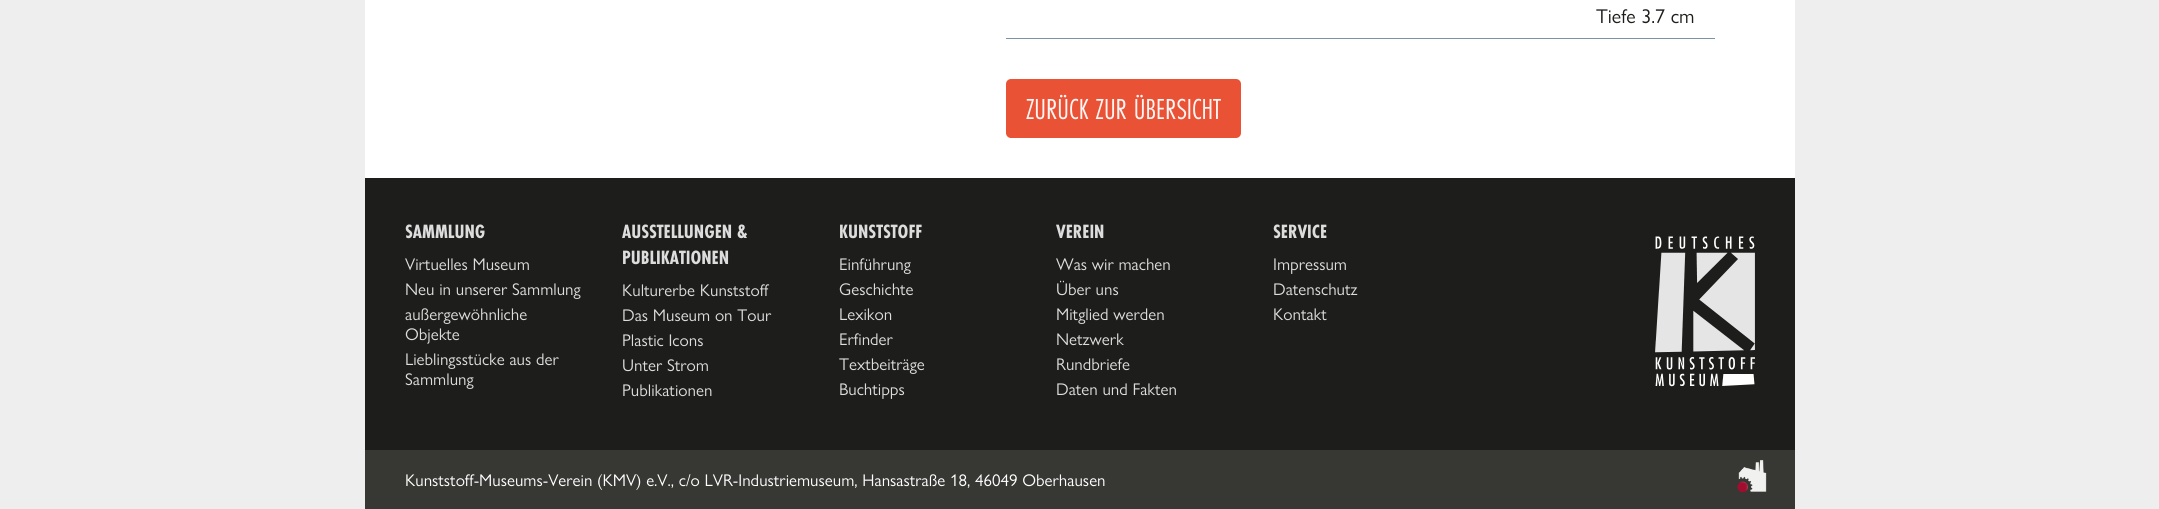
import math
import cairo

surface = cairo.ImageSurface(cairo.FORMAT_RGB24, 2159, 509)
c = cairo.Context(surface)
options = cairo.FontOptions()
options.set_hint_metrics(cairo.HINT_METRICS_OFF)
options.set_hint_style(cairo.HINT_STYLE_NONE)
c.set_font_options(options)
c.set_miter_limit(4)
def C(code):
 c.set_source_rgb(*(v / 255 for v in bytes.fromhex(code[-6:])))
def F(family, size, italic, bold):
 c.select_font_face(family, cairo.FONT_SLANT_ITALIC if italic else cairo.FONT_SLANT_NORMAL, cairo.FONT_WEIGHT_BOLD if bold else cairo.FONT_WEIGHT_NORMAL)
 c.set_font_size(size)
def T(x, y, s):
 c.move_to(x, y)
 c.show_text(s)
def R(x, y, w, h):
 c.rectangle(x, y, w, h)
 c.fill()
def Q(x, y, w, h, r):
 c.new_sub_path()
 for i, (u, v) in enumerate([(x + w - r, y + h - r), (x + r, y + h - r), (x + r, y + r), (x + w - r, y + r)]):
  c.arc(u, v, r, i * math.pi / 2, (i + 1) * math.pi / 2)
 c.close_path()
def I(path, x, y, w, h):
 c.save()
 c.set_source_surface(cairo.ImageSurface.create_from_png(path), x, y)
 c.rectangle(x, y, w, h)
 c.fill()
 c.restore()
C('eeeeee')
c.paint()
C('ffffff')
R(365,0,1430,178)
C('7d93a1')
R(1006,38,709,1)
F('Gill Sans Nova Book',20,0,0)
C('1d1d1b')
T(1596,23,'Tiefe 3.7 cm')
C('ea5236')
Q(1006,79,235,59,5)
c.fill()
F('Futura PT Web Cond',30,0,0)
C('fef6f5')
T(1026,119,'ZURÜCK ZUR ÜBERSICHT')
C('1d1d1b')
R(365,178,1430,272)
F('Futura PT Web Cond',20,0,1)
C('dddddd')
T(405,238,'SAMMLUNG')
F('Gill Sans Nova Book',17,0,0)
T(405,270,'Virtuelles Museum')
T(405,295,'Neu in unserer Sammlung')
T(405,320,'außergewöhnliche')
T(405,340,'Objekte')
T(405,365,'Lieblingsstücke aus der')
T(405,385,'Sammlung')
F('Futura PT Web Cond',20,0,1)
T(622,238,'AUSSTELLUNGEN &')
T(622,264,'PUBLIKATIONEN')
F('Gill Sans Nova Book',17,0,0)
T(622,296,'Kulturerbe Kunststoff')
T(622,321,'Das Museum on Tour')
T(622,346,'Plastic Icons')
T(622,371,'Unter Strom')
T(622,396,'Publikationen')
F('Futura PT Web Cond',20,0,1)
T(839,238,'KUNSTSTOFF')
F('Gill Sans Nova Book',17,0,0)
T(839,270,'Einführung')
T(839,295,'Geschichte')
T(839,320,'Lexikon')
T(839,345,'Erfinder')
T(839,370,'Textbeiträge')
T(839,395,'Buchtipps')
F('Futura PT Web Cond',20,0,1)
T(1056,238,'VEREIN')
F('Gill Sans Nova Book',17,0,0)
T(1056,270,'Was wir machen')
T(1056,295,'Über uns')
T(1056,320,'Mitglied werden')
T(1056,345,'Netzwerk')
T(1056,370,'Rundbriefe')
T(1056,395,'Daten und Fakten')
F('Futura PT Web Cond',20,0,1)
T(1273,238,'SERVICE')
F('Gill Sans Nova Book',17,0,0)
T(1273,270,'Impressum')
T(1273,295,'Datenschutz')
T(1273,320,'Kontakt')
I('1.png',1655,236,100,151)
C('373734')
R(365,450,1430,59)
I('2.png',1737,460,30,33)
C('ffffff')
T(405,486,'Kunststoff-Museums-Verein (KMV) e.V., c/o LVR-Industriemuseum, Hansastraße 18, 46049 Oberhausen')
surface.write_to_png('o.png')
